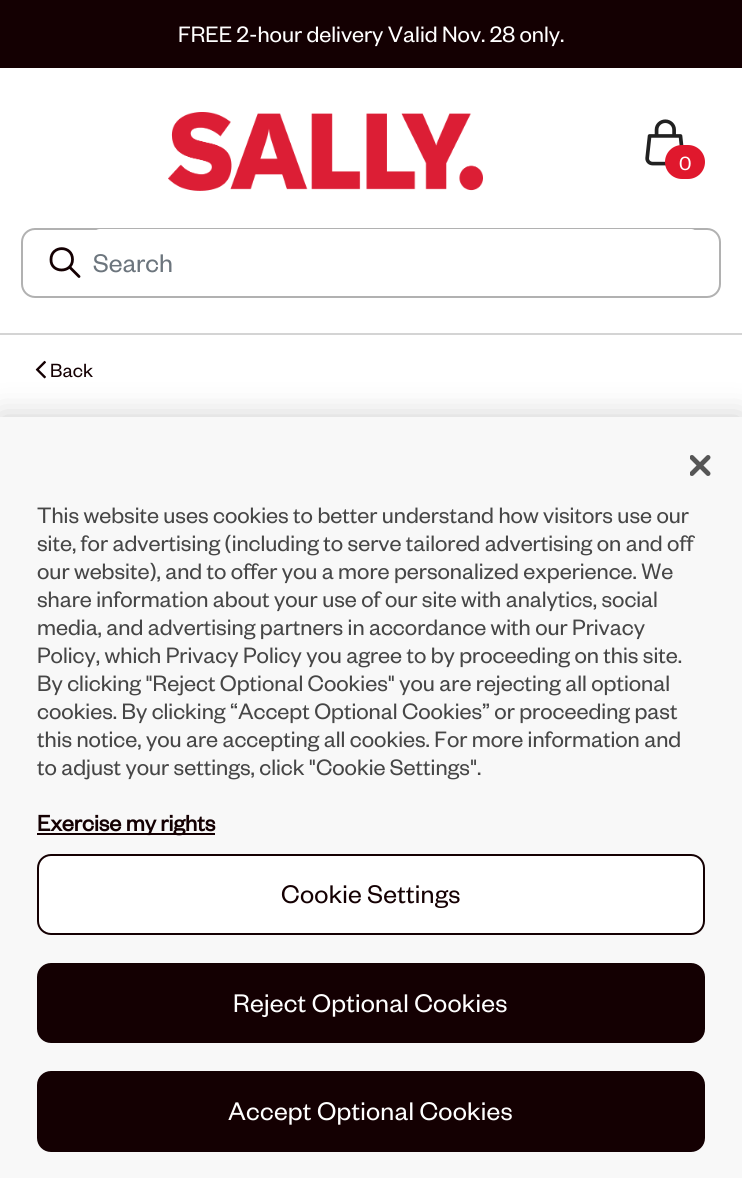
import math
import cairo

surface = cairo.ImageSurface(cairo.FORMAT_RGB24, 742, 1178)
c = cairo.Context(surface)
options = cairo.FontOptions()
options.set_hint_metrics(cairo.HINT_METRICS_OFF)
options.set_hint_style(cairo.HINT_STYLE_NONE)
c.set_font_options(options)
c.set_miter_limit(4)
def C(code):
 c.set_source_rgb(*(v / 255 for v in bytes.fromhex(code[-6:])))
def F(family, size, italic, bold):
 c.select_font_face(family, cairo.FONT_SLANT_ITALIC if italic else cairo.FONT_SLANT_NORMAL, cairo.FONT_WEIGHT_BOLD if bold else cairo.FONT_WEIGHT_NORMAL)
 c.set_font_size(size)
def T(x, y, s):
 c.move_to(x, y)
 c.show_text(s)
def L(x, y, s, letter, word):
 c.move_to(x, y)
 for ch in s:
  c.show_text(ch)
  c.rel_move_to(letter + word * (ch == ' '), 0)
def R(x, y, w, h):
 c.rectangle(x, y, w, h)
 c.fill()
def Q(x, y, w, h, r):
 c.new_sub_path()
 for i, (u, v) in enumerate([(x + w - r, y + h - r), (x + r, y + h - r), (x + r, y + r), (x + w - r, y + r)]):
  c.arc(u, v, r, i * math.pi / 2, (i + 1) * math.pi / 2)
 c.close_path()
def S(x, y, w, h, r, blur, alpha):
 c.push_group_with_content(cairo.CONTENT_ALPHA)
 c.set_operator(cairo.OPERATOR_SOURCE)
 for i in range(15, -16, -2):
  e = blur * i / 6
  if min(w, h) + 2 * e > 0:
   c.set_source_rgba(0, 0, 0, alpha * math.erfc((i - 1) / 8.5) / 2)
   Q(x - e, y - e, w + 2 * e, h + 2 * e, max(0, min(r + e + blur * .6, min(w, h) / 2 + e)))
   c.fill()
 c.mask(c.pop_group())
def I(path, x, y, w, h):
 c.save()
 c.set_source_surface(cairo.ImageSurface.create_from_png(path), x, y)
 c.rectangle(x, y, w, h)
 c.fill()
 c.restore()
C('ffffff')
c.paint()
C('140002')
R(0,0,742,68)
F('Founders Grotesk',24.5,0,0)
C('ffffff')
T(178,42,'FREE 2-hour delivery Valid Nov. 28 only.')
C('d4d4d4')
R(0,333,742,2)
I('1.png',168,112,315,79)
I('2.png',645,119,39,47)
C('e0182d')
Q(665,145,40,34,17)
c.fill()
F('Founders Grotesk',21,0,0)
C('ffffff')
L(679,170,'0',-1,0)
Q(22,229,698,68,13)
C('b1b1b1')
c.stroke()
c.new_path()
c.move_to(79,276.5)
c.line_to(69.5,267)
c.move_to(72.5,259.5)
c.curve_to(72.5,273.5,50.5,273.5,51,259.5)
c.curve_to(51,245,72.5,245,72.5,259.5)
c.close_path()
C('140002')
c.set_line_width(2.8)
c.set_line_cap(cairo.LINE_CAP_ROUND)
c.set_line_join(cairo.LINE_JOIN_ROUND)
c.stroke()
C('ffffff')
Q(93,229,605,67,7)
c.fill()
F('Founders Grotesk',28,0,0)
C('6c757d')
T(93,272,'Search')
I('3.png',35,360,11,19)
F('Founders Grotesk',21,0,0)
C('140002')
T(50,377,'Back')
C('000000')
S(0,417,742,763,0,16,.2)
C('f8f8f8')
R(0,417,742,761)
I('4.png',690,455,21,21)
F('Founders Grotesk',24.5,0,0)
C('464646')
T(37,523,'This website uses cookies to better understand how visitors use our')
T(37,551,'site, for advertising (including to serve tailored advertising on and off')
T(37,579,'our website), and to offer you a more personalized experience. We')
T(37,607,'share information about your use of our site with analytics, social')
T(37,635,'media, and advertising partners in accordance with our Privacy')
T(37,663,'Policy, which Privacy Policy you agree to by proceeding on this site.')
T(37,691,'By clicking "Reject Optional Cookies" you are rejecting all optional')
T(37,719,'cookies. By clicking “Accept Optional Cookies” or proceeding past')
T(37,747,'this notice, you are accepting all cookies. For more information and')
T(37,775,'to adjust your settings, click "Cookie Settings".')
C('140002')
R(37,833,178,2)
F('Founders Grotesk',24.5,0,1)
T(37,831,'Exercise my rights')
C('ffffff')
Q(38,855,666,79,13)
c.fill_preserve()
C('140002')
c.set_line_width(2)
c.set_line_cap(cairo.LINE_CAP_BUTT)
c.set_line_join(cairo.LINE_JOIN_MITER)
c.stroke()
F('Founders Grotesk',28,0,0)
L(281,903,'Cookie Settings',.25,0)
Q(38,964,666,78,13)
c.fill_preserve()
c.stroke()
C('ffffff')
L(233,1012,'Reject Optional Cookies',.25,0)
C('140002')
Q(38,1072,666,79,13)
c.fill_preserve()
c.stroke()
C('ffffff')
L(228,1120,'Accept Optional Cookies',.25,0)
surface.write_to_png('o.png')
